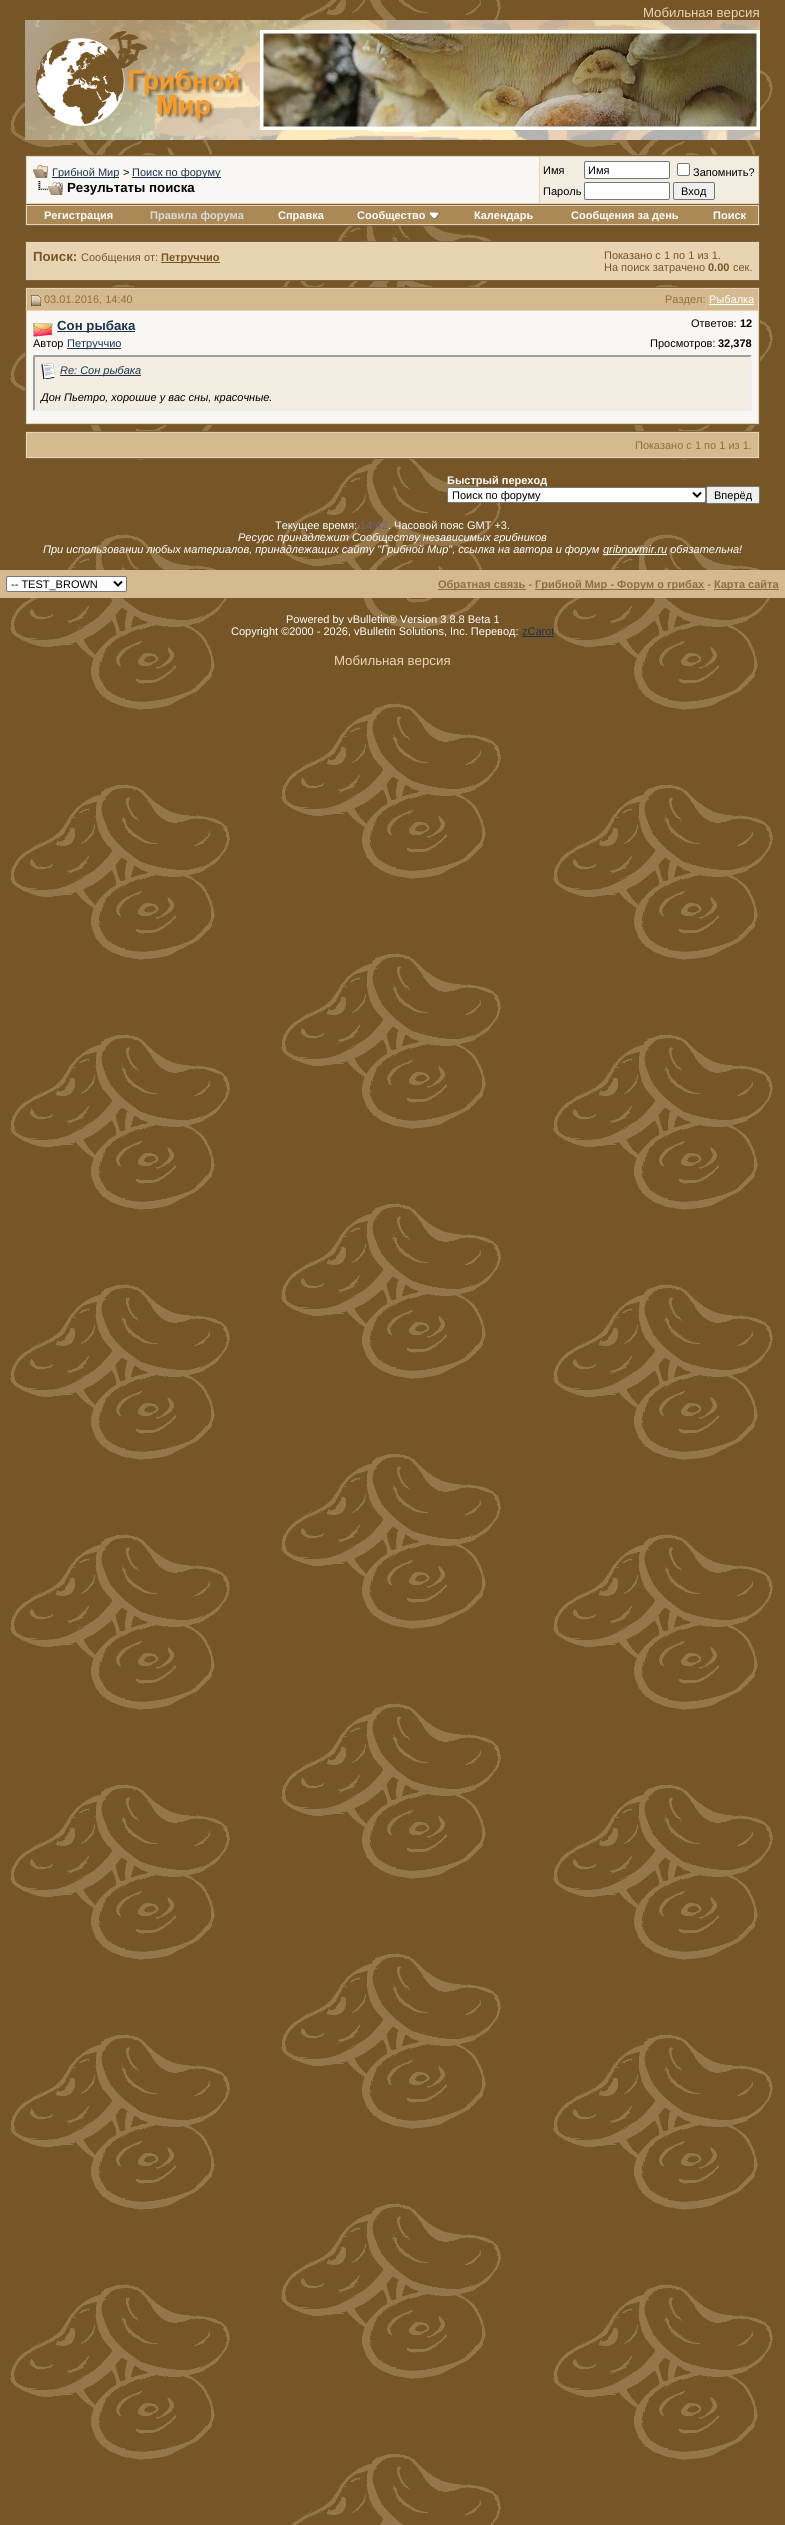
import math
import cairo

surface = cairo.ImageSurface(cairo.FORMAT_RGB24, 785, 2525)
c = cairo.Context(surface)
options = cairo.FontOptions()
options.set_hint_metrics(cairo.HINT_METRICS_OFF)
options.set_hint_style(cairo.HINT_STYLE_NONE)
c.set_font_options(options)
c.set_miter_limit(4)
def C(code):
 c.set_source_rgb(*(v / 255 for v in bytes.fromhex(code[-6:])))
def F(family, size, italic, bold):
 c.select_font_face(family, cairo.FONT_SLANT_ITALIC if italic else cairo.FONT_SLANT_NORMAL, cairo.FONT_WEIGHT_BOLD if bold else cairo.FONT_WEIGHT_NORMAL)
 c.set_font_size(size)
def T(x, y, s):
 c.move_to(x, y)
 c.show_text(s)
def R(x, y, w, h):
 c.rectangle(x, y, w, h)
 c.fill()
def Q(x, y, w, h, r):
 c.new_sub_path()
 for i, (u, v) in enumerate([(x + w - r, y + h - r), (x + r, y + h - r), (x + r, y + r), (x + w - r, y + r)]):
  c.arc(u, v, r, i * math.pi / 2, (i + 1) * math.pi / 2)
 c.close_path()
def I(path, x, y, w, h):
 c.save()
 c.set_source_surface(cairo.ImageSurface.create_from_png(path), x, y)
 c.rectangle(x, y, w, h)
 c.fill()
 c.restore()
C('765627')
c.paint()
I('1.png',10,0,763,2525)
F('Liberation Sans',13.25,0,0)
C('e8d3b3')
T(643,17,'Мобильная версия')
I('2.png',25,20,735,120)
I('3.png',36,31,207,95)
I('4.png',260,30,500,100)
c.rectangle(25.5,155.5,734,49)
c.fill_preserve()
C('7d6440')
c.set_line_width(1)
c.stroke()
C('f9f7f4')
R(27,157,512,46)
I('5.png',33,165,15,13)
C('1c344d')
R(52,177,67,1)
F('Liberation Sans',11,0,0)
T(52,176,'Грибной Мир')
C('000000')
T(123,176,'>')
C('1c344d')
R(132,177,89,1)
T(132,176,'Поиск по форуму')
I('6.png',38,181,25,14)
F('Liberation Sans',13.25,0,1)
C('000000')
T(67,192,'Результаты поиска')
C('f3ece1')
R(540,157,218,46)
F('Liberation Sans',11,0,0)
C('000000')
T(543,174,'Имя')
C('ffffff')
Q(584.5,161.5,85,17,1.5)
c.fill_preserve()
C('767676')
c.stroke()
C('000000')
T(588,174,'Имя')
C('ffffff')
Q(677.5,163.5,12,12,1.5)
c.fill_preserve()
C('767676')
c.stroke()
C('000000')
T(693,176,'Запомнить?')
T(543,195,'Пароль')
C('ffffff')
Q(584.5,182.5,85,17,1.5)
c.fill_preserve()
C('767676')
c.stroke()
C('efefef')
Q(673.5,182.5,41,17,1.5)
c.fill_preserve()
C('767676')
c.stroke()
C('000000')
T(681,195,'Вход')
C('e8d3b3')
R(26,205,733,20)
C('7d6440')
R(759,205,1,21)
R(25,225,735,1)
R(25,205,1,21)
C('ab8957')
R(27,206,731,18)
F('Liberation Sans',11,0,1)
C('ffffff')
T(44,219,'Регистрация')
C('dbdada')
T(150,219,'Правила форума')
C('ffffff')
T(278,219,'Справка')
T(357,219,'Сообщество')
I('7.png',429,212,11,7)
T(474,219,'Календарь')
T(571,219,'Сообщения за день')
T(713,219,'Поиск')
C('e8d3b3')
c.rectangle(25.5,241.5,734,39)
c.fill_preserve()
C('7d6440')
c.stroke()
F('Liberation Sans',13.25,0,1)
C('765627')
T(33,261,'Поиск:')
F('Liberation Sans',11,0,0)
T(81,261,'Сообщения от:')
R(161,262,59,1)
F('Liberation Sans',11,0,1)
T(161,261,'Петруччио')
F('Liberation Sans',11,0,0)
T(604,259,'Показано с 1 по 1 из 1.')
T(604,271,'На поиск затрачено')
F('Liberation Sans',11,0,1)
T(708,271,'0.00')
F('Liberation Sans',11,0,0)
T(733,271,'сек.')
C('e8d3b3')
c.rectangle(25.5,287.5,734,137)
c.fill_preserve()
C('7d6440')
c.stroke()
C('d5ba90')
R(27,289,731,21)
I('8.png',31,295,10,11)
C('8f6f3f')
T(44,303,'03.01.2016, 14:40')
T(665,303,'Раздел:')
C('ffffff')
T(709,303,'Рыбалка')
R(709,304,45,1)
C('f9f7f4')
R(27,311,731,112)
I('9.png',33,323,20,14)
C('1c344d')
R(57,331,78,1)
F('Liberation Sans',13.25,0,1)
T(57,330,'Сон рыбака')
F('Liberation Sans',11,0,0)
C('000000')
T(691,327,'Ответов:')
F('Liberation Sans',11,0,1)
T(740,327,'12')
F('Liberation Sans',11,0,0)
T(33,347,'Автор')
C('1c344d')
R(67,348,54,1)
T(67,347,'Петруччио')
C('000000')
T(650,347,'Просмотров:')
F('Liberation Sans',11,0,1)
T(718,347,'32,378')
C('f3ece1')
R(33,355,719,56)
C('9f9f9f')
c.new_path()
c.move_to(33,355)
c.line_to(752,355)
c.line_to(750,357)
c.line_to(35,357)
c.close_path()
c.fill()
C('eeeeee')
c.new_path()
c.move_to(752,355)
c.line_to(752,411)
c.line_to(750,409)
c.line_to(750,357)
c.close_path()
c.fill()
c.new_path()
c.move_to(752,411)
c.line_to(33,411)
c.line_to(35,409)
c.line_to(750,409)
c.close_path()
c.fill()
C('9f9f9f')
c.new_path()
c.move_to(33,411)
c.line_to(33,355)
c.line_to(35,357)
c.line_to(35,409)
c.close_path()
c.fill()
I('10.png',41,363,15,16)
C('1c344d')
R(60,375,81,1)
F('Liberation Sans',11,1,0)
T(60,374,'Re: Сон рыбака')
C('000000')
T(41,401,'Дон Пьетро, хорошие у вас сны, красочные.')
C('e8d3b3')
c.rectangle(25.5,431.5,734,27)
c.fill_preserve()
C('7d6440')
c.stroke()
C('d5ba90')
R(27,433,731,24)
F('Liberation Sans',11,0,0)
C('8f6f3f')
T(635,449,'Показано с 1 по 1 из 1.')
F('Liberation Sans',11,0,1)
C('ffffff')
T(447,484,'Быстрый переход')
Q(447.5,487.5,258,15,1.5)
c.fill_preserve()
C('767676')
c.stroke()
c.new_path()
c.move_to(693,492.5)
c.line_to(697,496.5)
c.line_to(701,492.5)
C('000000')
c.set_line_width(2)
c.stroke()
F('Liberation Sans',11,0,0)
T(452,499,'Поиск по форуму')
C('efefef')
Q(706.5,486.5,53,17,1.5)
c.fill_preserve()
C('767676')
c.set_line_width(1)
c.stroke()
C('000000')
T(714,499,'Вперёд')
C('ffffff')
T(275,529,'Текущее время:')
C('666686')
T(360,529,'14:42')
C('ffffff')
T(388,529,'. Часовой пояс GMT +3.')
F('Liberation Sans',11,1,0)
T(238,541,'Ресурс принадлежит Сообществу независимых грибников')
T(43,553,'При использовании любых материалов, принадлежащих сайту "Грибной Мир", ссылка на автора и форум')
R(603,554,64,1)
T(603,553,'gribnoymir.ru обязательна!')
C('d5ba90')
R(0,570,785,28)
C('ffffff')
Q(6.5,576.5,120,15,1.5)
c.fill_preserve()
C('767676')
c.stroke()
c.new_path()
c.move_to(114,581.5)
c.line_to(118,585.5)
c.line_to(122,581.5)
C('000000')
c.set_line_width(2)
c.stroke()
F('Liberation Sans',11,0,0)
T(11,588,'-- TEST_BROWN')
C('8f6f3f')
R(438,589,88,1)
F('Liberation Sans',11,0,1)
T(438,588,'Обратная связь -')
R(535,589,170,1)
T(535,588,'Грибной Мир - Форум о грибах -')
R(714,589,65,1)
T(714,588,'Карта сайта')
F('Liberation Sans',11,0,0)
C('ffffff')
T(286,623,'Powered by vBulletin® Version 3.8.8 Beta 1')
T(231,635,'Copyright ©2000 - 2026, vBulletin Solutions, Inc. Перевод:')
C('1c344d')
T(522,635,'zCarot')
R(522,636,32,1)
F('Liberation Sans',13.25,0,0)
C('e8d3b3')
T(334,665,'Мобильная версия')
surface.write_to_png('o.png')
